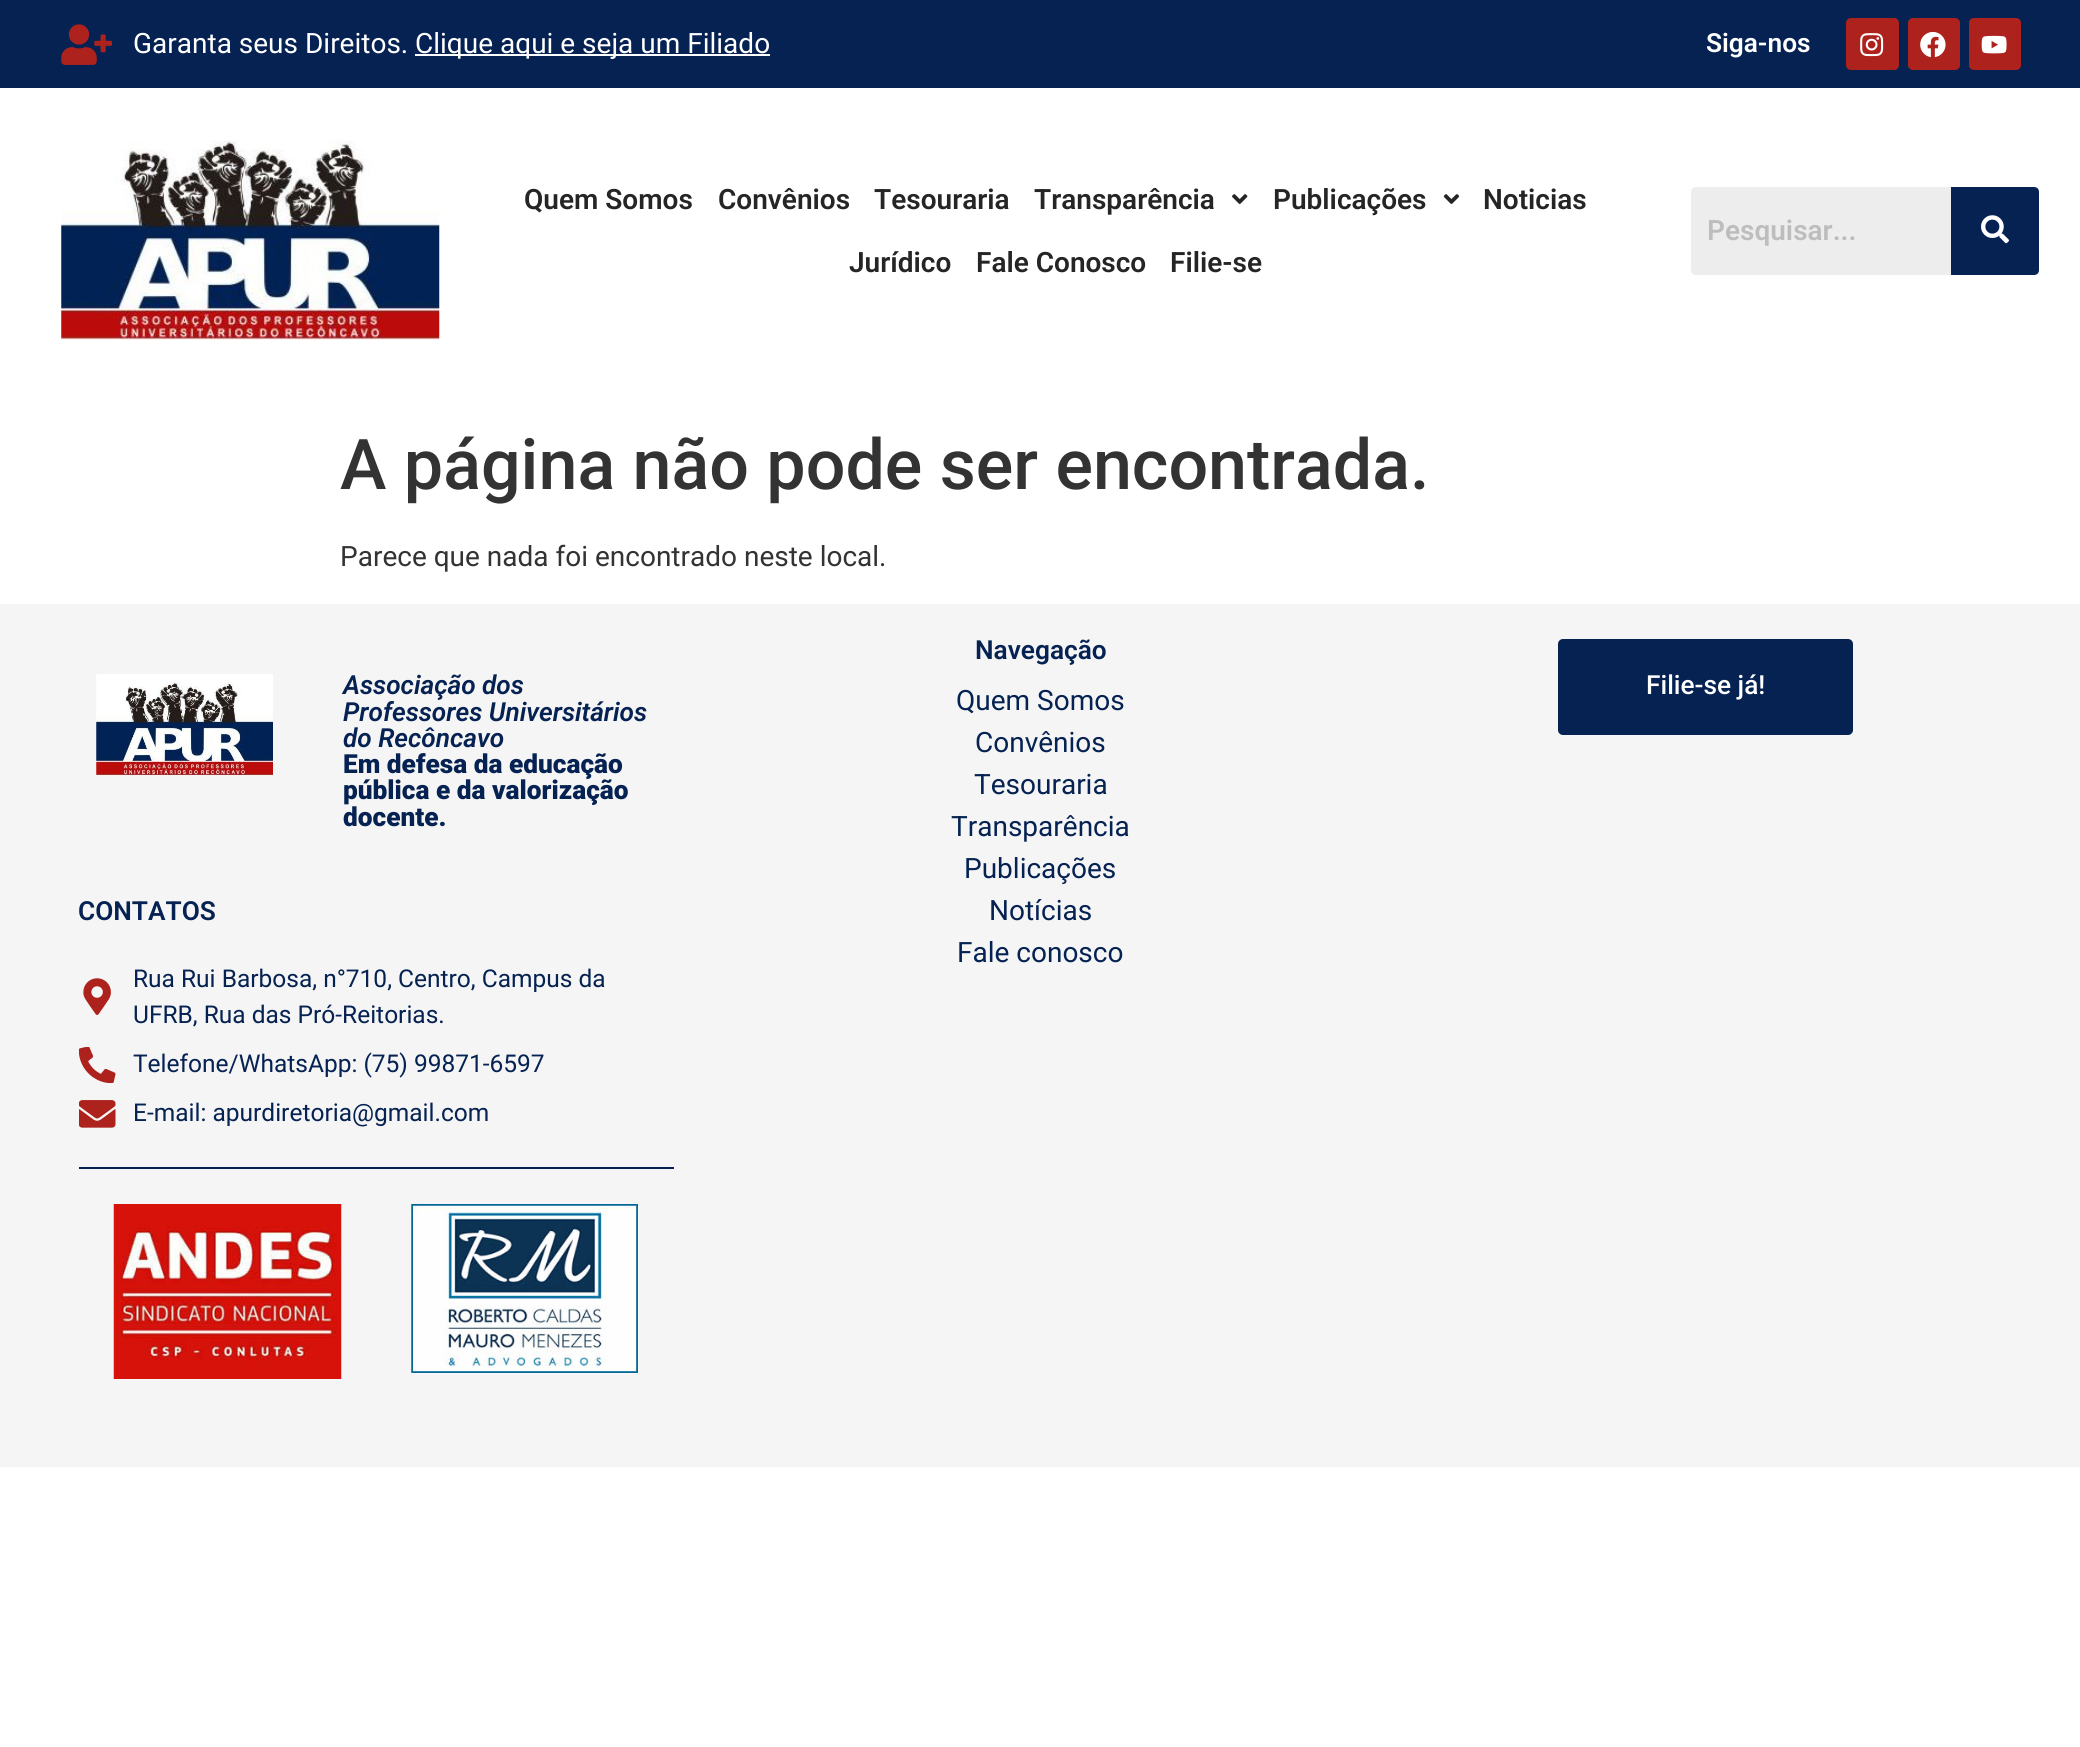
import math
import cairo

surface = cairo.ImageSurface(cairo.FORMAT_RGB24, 2080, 1747)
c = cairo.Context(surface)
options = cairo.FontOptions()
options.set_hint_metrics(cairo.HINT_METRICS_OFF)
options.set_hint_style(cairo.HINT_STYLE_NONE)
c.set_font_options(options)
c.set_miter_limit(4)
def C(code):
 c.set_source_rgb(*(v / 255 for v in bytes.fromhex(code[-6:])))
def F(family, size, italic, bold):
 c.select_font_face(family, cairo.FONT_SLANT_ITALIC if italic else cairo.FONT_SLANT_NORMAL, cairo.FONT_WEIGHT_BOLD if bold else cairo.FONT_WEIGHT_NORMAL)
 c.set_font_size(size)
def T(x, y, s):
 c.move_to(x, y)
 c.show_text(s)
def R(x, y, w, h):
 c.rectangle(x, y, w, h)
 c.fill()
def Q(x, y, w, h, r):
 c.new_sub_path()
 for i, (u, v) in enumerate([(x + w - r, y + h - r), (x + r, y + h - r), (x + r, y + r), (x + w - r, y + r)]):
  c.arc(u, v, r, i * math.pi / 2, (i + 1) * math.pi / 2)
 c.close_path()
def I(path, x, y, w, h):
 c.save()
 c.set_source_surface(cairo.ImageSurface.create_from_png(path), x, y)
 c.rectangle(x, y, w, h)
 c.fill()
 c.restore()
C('ffffff')
c.paint()
C('052252')
R(0,0,2080,88)
I('1.png',61,24,51,41)
F('Roboto',28,0,0)
C('ffffff')
T(133,53,'Garanta seus Direitos.')
R(415,54,355,2)
T(415,53,'Clique aqui e seja um Filiado')
F('Roboto SemiBold',26.25,0,0)
T(1706,52,'Siga-nos')
C('ae221e')
Q(1846,18,53,52,5)
c.fill()
I('2.png',1860,33,24,24)
Q(1908,18,52,52,5)
c.fill()
I('3.png',1920,32,26,26)
Q(1969,18,52,52,5)
c.fill()
I('4.png',1981,35,26,19)
I('5.png',61,140,379,200)
F('Roboto SemiBold',28,0,0)
C('252525')
T(524,209,'Quem Somos')
T(718,209,'Convênios')
T(874,209,'Tesouraria')
T(1034,209,'Transparência')
I('6.png',1232,194,16,10)
T(1273,209,'Publicações')
I('7.png',1443,194,17,10)
T(1483,209,'Noticias')
T(849,272,'Jurídico')
T(976,272,'Fale Conosco')
T(1170,272,'Filie-se')
C('ededed')
c.new_path()
c.move_to(1696,187)
c.line_to(1951,187)
c.line_to(1951,275)
c.line_to(1696,275)
c.curve_to(1693,275,1691,273,1691,270)
c.line_to(1691,192)
c.curve_to(1691,189,1693,187,1696,187)
c.close_path()
c.fill()
C('bdbdbd')
T(1707,240,'Pesquisar...')
C('052252')
c.new_path()
c.move_to(1951,187)
c.line_to(2034,187)
c.curve_to(2037,187,2039,189,2039,192)
c.line_to(2039,270)
c.curve_to(2039,273,2037,275,2034,275)
c.line_to(1951,275)
c.close_path()
c.fill()
I('8.png',1981,215,28,29)
F('Roboto Medium',70,0,0)
C('333333')
T(340,489,'A página não pode ser encontrada.')
F('Roboto',28,0,0)
T(340,566,'Parece que nada foi encontrado neste local.')
C('f5f5f5')
R(0,604,2080,863)
I('9.png',96,674,177,102)
F('Roboto SemiBold',26.25,1,0)
C('052252')
T(343,694,'Associação dos')
T(343,721,'Professores Universitários')
T(343,747,'do Recôncavo')
F('Roboto Black',26.25,0,0)
T(343,773,'Em defesa da educação')
T(343,799,'pública e da valorização')
T(343,826,'docente.')
F('Roboto SemiBold',26.25,0,0)
T(78,920,'CONTATOS')
I('10.png',83,978,28,37)
F('Roboto',24.5,0,0)
T(133,987,'Rua Rui Barbosa, n°710, Centro, Campus da')
T(133,1023,'UFRB, Rua das Pró-Reitorias.')
I('11.png',79,1047,37,36)
T(133,1072,'Telefone/WhatsApp: (75) 99871-6597')
I('12.png',79,1100,37,28)
T(133,1121,'E-mail: apurdiretoria@gmail.com')
R(79,1167,595,2)
I('13.png',113,1204,229,175)
I('14.png',411,1204,228,170)
F('Roboto SemiBold',26.25,0,0)
T(975,659,'Navegação')
F('Roboto',28,0,0)
T(956,710,'Quem Somos')
T(975,752,'Convênios')
T(974,794,'Tesouraria')
T(951,836,'Transparência')
T(964,878,'Publicações')
T(989,920,'Notícias')
T(957,962,'Fale conosco')
Q(1558,639,295,96,5)
c.fill()
F('Roboto Medium',26.25,0,0)
C('ffffff')
T(1646,694,'Filie-se já!')
surface.write_to_png('o.png')
